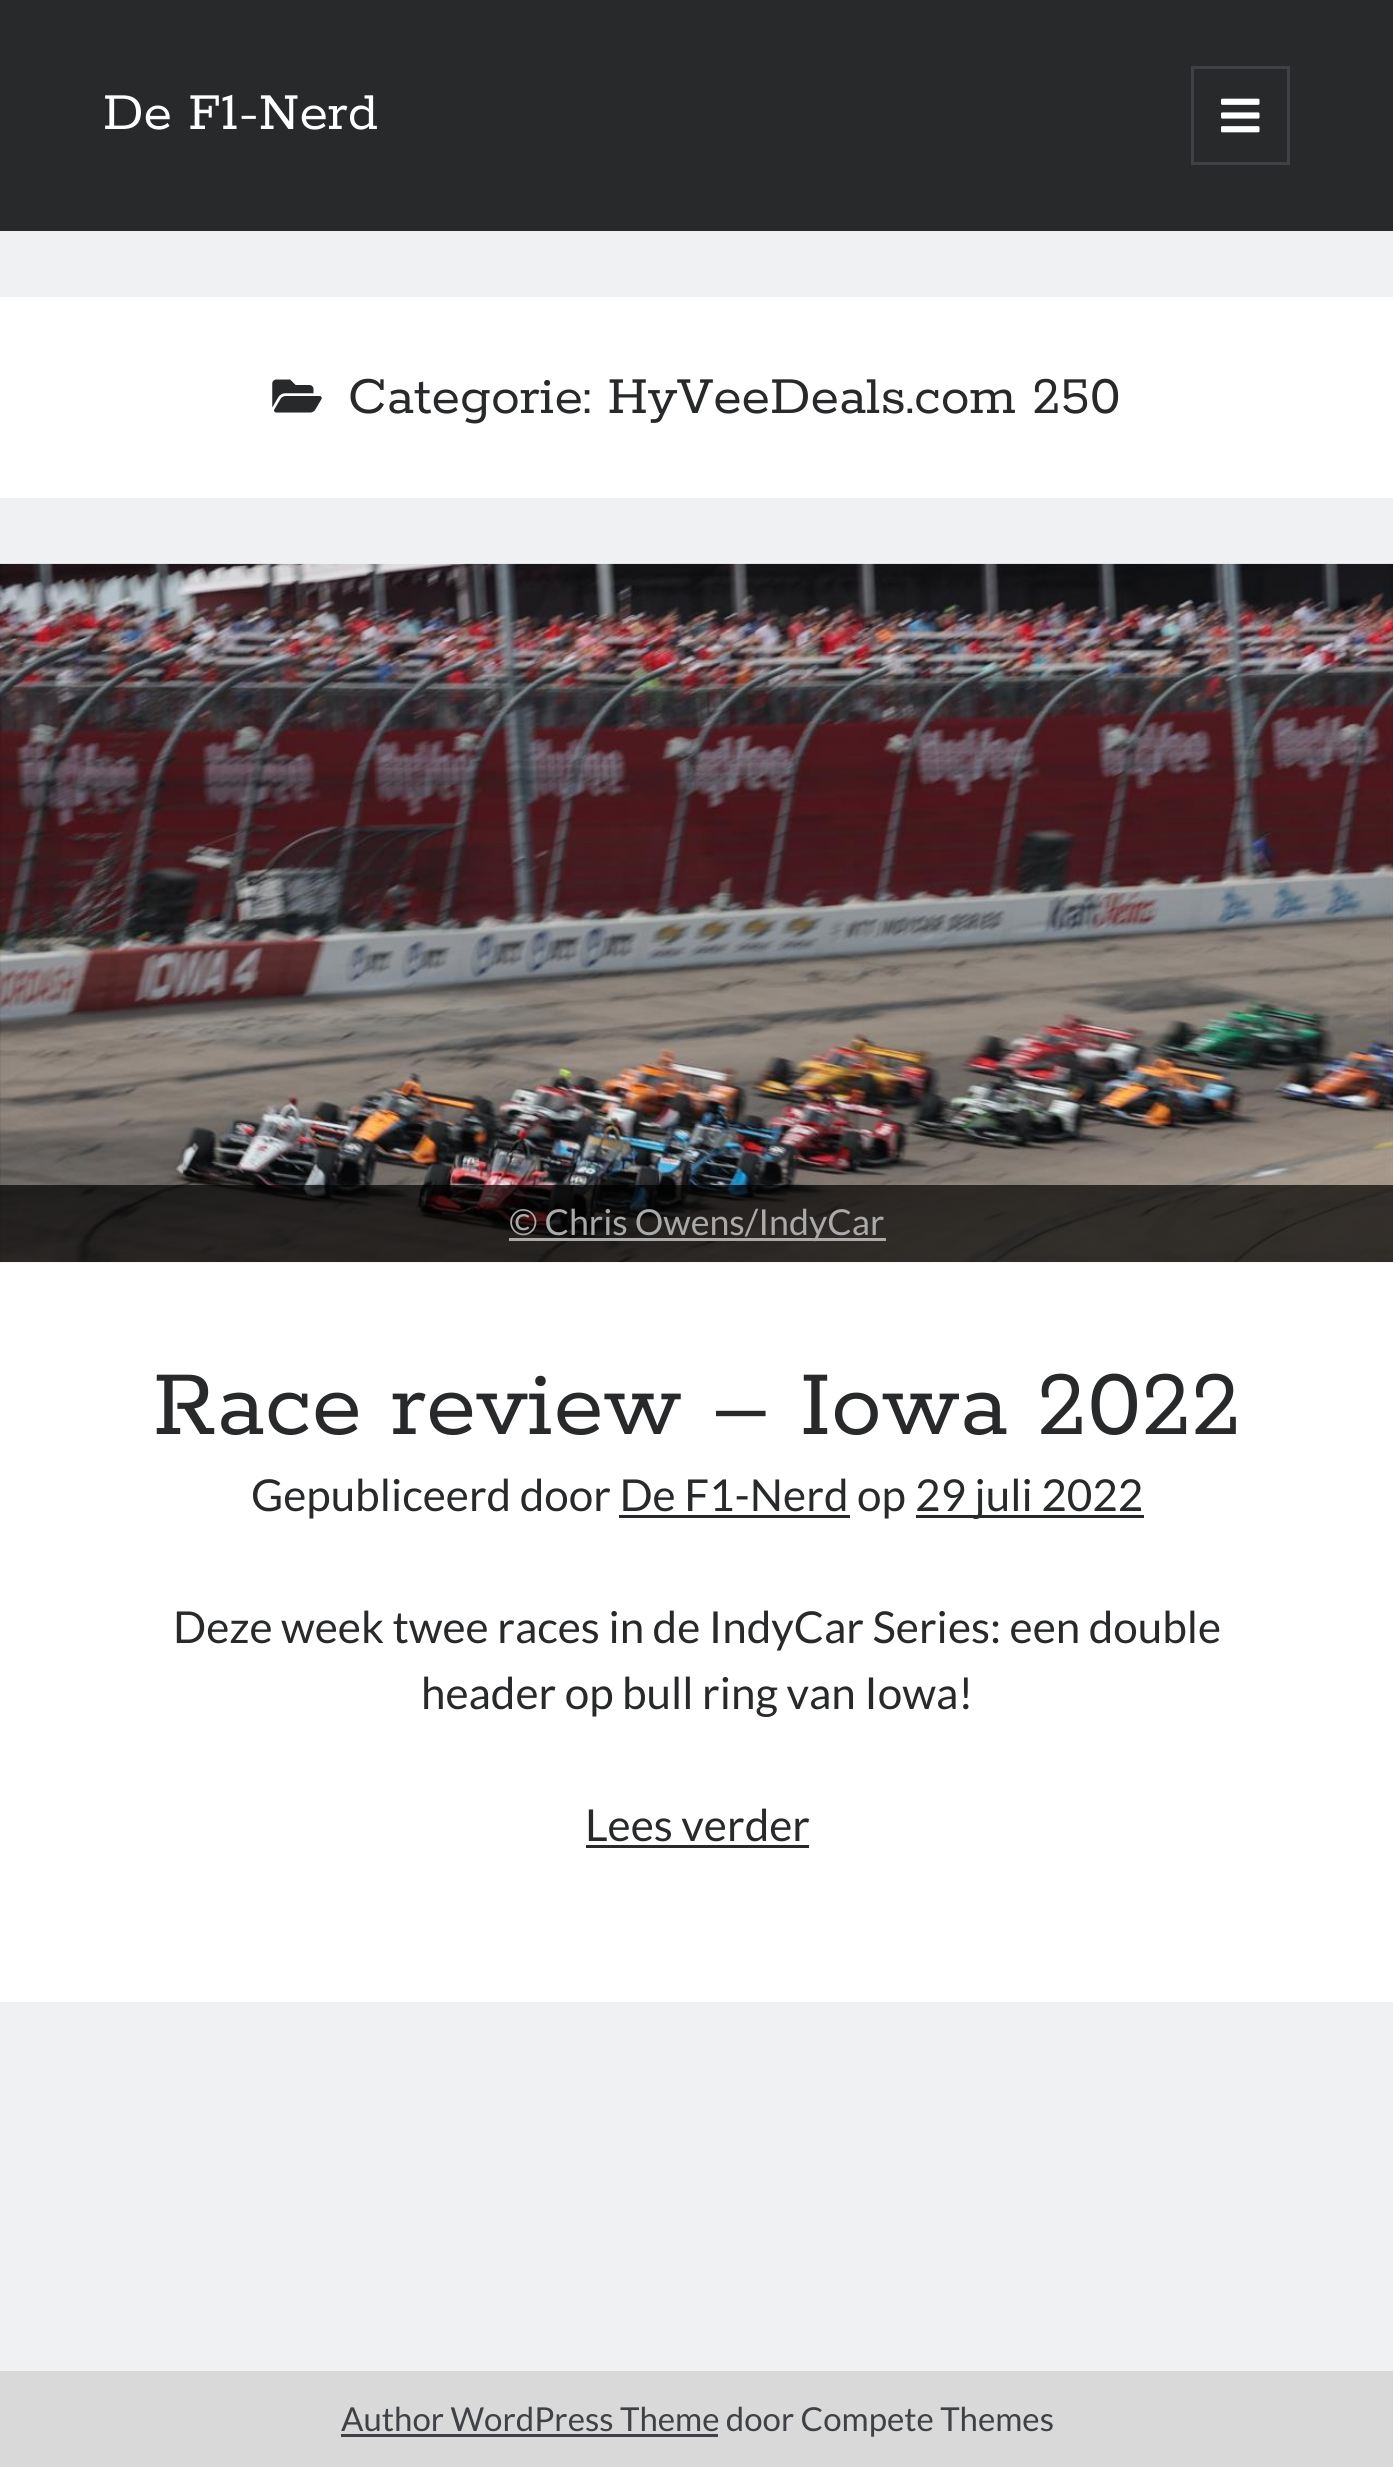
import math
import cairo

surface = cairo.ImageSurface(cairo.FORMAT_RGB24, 1393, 2467)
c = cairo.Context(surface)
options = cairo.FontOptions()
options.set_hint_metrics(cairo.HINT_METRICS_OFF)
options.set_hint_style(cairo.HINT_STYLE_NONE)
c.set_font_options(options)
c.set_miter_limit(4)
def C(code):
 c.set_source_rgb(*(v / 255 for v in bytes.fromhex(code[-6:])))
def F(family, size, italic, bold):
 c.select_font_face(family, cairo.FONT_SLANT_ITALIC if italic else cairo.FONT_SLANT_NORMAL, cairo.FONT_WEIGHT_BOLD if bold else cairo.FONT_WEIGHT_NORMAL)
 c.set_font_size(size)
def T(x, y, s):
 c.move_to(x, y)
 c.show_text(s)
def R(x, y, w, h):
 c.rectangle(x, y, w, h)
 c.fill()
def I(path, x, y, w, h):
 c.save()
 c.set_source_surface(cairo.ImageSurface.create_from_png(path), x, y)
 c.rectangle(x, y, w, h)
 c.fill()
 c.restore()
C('27292b')
c.paint()
F('Rokkitt',57.75,0,0)
C('ffffff')
T(103,129,'De F1-Nerd')
c.rectangle(1192.5,67.5,96,96)
C('3e4145')
c.set_line_width(3)
c.stroke()
I('1.png',1221,98,39,35)
C('f0f1f2')
R(0,231,1393,2140)
C('ffffff')
R(0,297,1393,201)
I('2.png',272,379,50,34)
C('27292b')
T(348,413,'Categorie: HyVeeDeals.com 250')
C('ffffff')
R(0,1262,1393,740)
I('3.png',0,563,1393,700)
c.set_source_rgba(0,0,0,0.7)
R(0,1185,1393,77)
C('aaaaaa')
R(509,1238,377,3)
F('Lato',35.75,0,0)
T(509,1235,'© Chris Owens/IndyCar')
F('Rokkitt',101.75,0,0)
C('27292b')
T(153,1434,'Race review – Iowa 2022')
F('Lato',44,0,0)
T(251,1511,'Gepubliceerd door De F1-Nerd op')
R(619,1515,231,3)
R(916,1515,228,3)
T(915,1511,'29 juli 2022')
T(173,1643,'Deze week twee races in de IndyCar Series: een double')
T(421,1709,'header op bull ring van Iowa!')
T(585,1841,'Lees verder')
R(586,1845,223,3)
C('d9d9d9')
R(0,2371,1393,96)
C('3e4145')
R(341,2434,377,3)
F('Lato',33,0,0)
T(341,2431,'Author WordPress Theme door Compete Themes')
surface.write_to_png('o.png')
